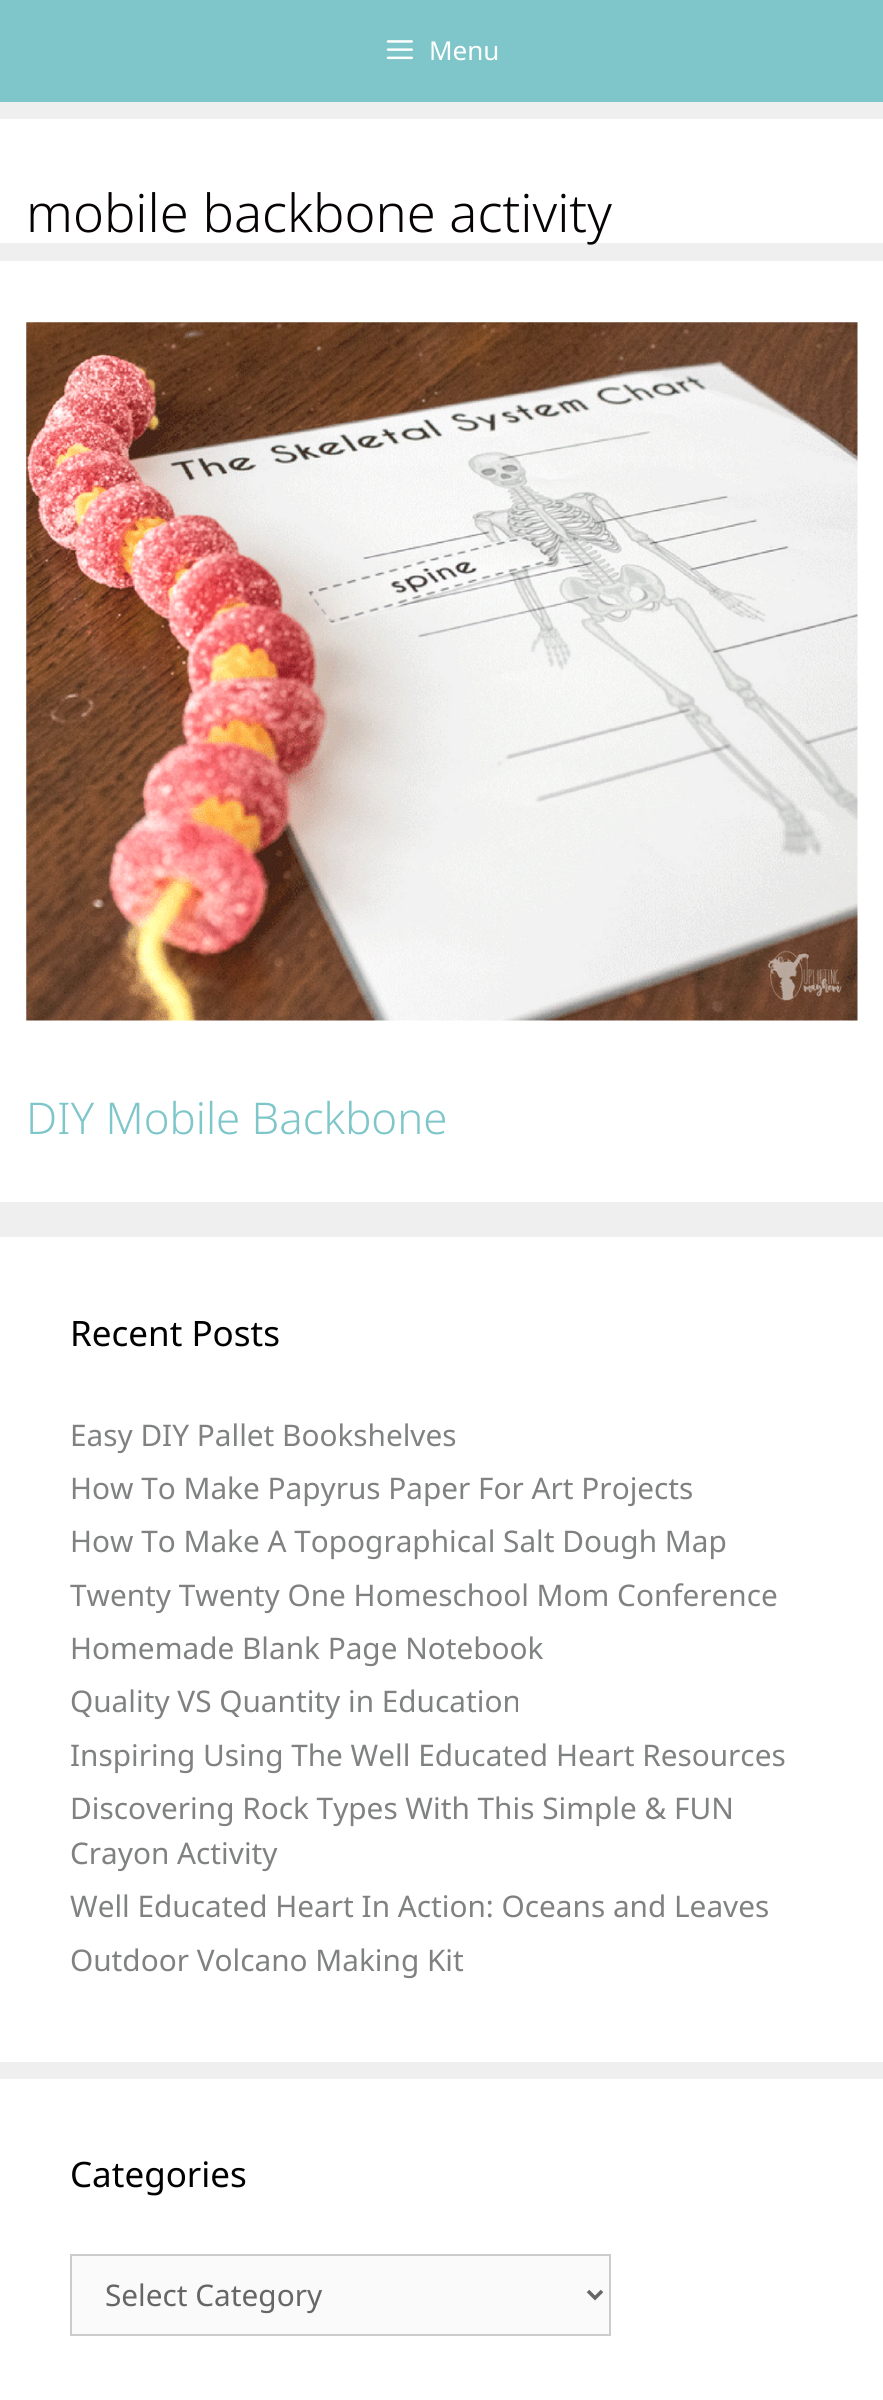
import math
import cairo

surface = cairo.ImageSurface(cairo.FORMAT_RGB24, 883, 2400)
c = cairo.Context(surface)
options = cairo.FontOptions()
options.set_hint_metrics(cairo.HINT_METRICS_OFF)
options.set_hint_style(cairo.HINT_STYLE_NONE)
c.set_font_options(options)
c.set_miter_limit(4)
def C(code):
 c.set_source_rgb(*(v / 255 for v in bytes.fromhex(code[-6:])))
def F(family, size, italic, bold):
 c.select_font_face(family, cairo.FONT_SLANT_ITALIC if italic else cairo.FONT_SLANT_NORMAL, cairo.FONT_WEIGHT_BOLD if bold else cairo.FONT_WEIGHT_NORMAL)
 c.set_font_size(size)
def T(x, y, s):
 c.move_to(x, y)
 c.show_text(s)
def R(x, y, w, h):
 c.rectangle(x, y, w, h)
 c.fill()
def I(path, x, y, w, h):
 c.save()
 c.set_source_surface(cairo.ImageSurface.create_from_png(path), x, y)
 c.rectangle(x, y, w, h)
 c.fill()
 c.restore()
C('efefef')
c.paint()
C('7ec6c9')
R(0,0,883,102)
I('1.png',386,40,27,20)
F('Noto Sans',26,0,0)
C('ffffff')
T(429,60,'Menu')
R(0,119,883,124)
F('Noto Sans Light',52.5,0,0)
C('070304')
T(26,232,'mobile backbone activity')
C('ffffff')
R(0,261,883,941)
I('2.png',26,322,832,699)
F('Noto Sans Light',43.75,0,0)
C('7ec6c9')
T(26,1134,'DIY Mobile Backbone')
C('ffffff')
R(0,1237,883,825)
F('Noto Sans',35,0,0)
C('000000')
T(70,1346,'Recent Posts')
F('Noto Sans',29.75,0,0)
C('808281')
T(70,1446,'Easy DIY Pallet Bookshelves')
T(70,1499,'How To Make Papyrus Paper For Art Projects')
T(70,1552,'How To Make A Topographical Salt Dough Map')
T(70,1606,'Twenty Twenty One Homeschool Mom Conference')
T(70,1659,'Homemade Blank Page Notebook')
T(70,1712,'Quality VS Quantity in Education')
T(70,1766,'Inspiring Using The Well Educated Heart Resources')
T(70,1819,'Discovering Rock Types With This Simple & FUN')
T(70,1864,'Crayon Activity')
T(70,1917,'Well Educated Heart In Action: Oceans and Leaves')
T(70,1971,'Outdoor Volcano Making Kit')
C('ffffff')
R(0,2079,883,321)
F('Noto Sans',35,0,0)
C('000000')
T(70,2187,'Categories')
C('fafafa')
c.rectangle(71,2255,539,80)
c.fill_preserve()
C('cccccc')
c.stroke()
c.new_path()
c.move_to(588,2291)
c.line_to(595,2298)
c.line_to(602,2291)
C('666666')
c.set_line_width(3.5)
c.stroke()
F('Noto Sans',29.75,0,0)
T(105,2306,'Select Category')
surface.write_to_png('o.png')
